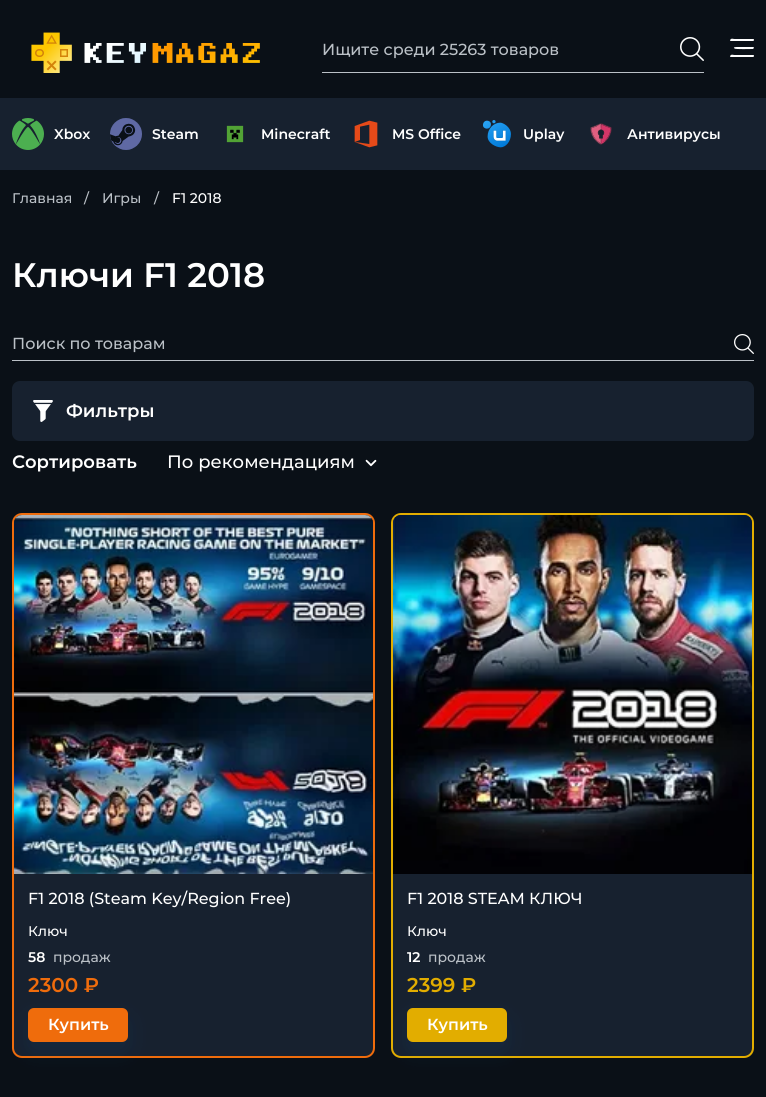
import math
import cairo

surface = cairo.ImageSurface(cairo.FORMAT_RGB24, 766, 1097)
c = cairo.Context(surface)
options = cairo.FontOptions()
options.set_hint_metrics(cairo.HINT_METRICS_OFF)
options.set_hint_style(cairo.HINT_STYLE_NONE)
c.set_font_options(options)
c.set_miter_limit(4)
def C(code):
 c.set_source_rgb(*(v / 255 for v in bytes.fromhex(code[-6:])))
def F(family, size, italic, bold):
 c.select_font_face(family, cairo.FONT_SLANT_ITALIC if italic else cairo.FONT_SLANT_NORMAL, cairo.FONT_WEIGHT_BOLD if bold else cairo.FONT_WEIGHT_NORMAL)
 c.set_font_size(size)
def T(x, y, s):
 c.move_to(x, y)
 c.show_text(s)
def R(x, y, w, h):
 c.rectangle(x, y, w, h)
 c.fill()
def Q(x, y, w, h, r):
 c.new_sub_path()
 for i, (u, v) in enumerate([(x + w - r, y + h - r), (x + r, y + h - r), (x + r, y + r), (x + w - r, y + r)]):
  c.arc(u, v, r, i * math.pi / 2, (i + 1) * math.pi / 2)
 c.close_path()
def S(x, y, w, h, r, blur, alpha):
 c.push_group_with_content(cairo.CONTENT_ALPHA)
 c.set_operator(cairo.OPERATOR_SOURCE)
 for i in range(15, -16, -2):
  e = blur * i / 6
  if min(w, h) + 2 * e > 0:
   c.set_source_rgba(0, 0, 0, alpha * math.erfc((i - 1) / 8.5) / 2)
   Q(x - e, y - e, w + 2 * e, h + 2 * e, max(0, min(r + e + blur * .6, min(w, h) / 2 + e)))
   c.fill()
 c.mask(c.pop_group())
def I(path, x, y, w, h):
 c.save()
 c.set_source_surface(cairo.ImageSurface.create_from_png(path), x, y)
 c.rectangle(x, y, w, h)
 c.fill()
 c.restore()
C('0a1017')
c.paint()
I('1.png',31,32,229,41)
F('Montserrat Medium',16,0,0)
C('bbc1c7')
T(322,55,'Ищите среди 25263 товаров')
I('2.png',680,37,24,24)
R(322,72,382,1)
C('ffffff')
c.new_path()
c.move_to(753,49)
c.curve_to(751,49,735,49.5,734.5,48.5)
c.curve_to(732.5,47,736,47,738,47)
c.line_to(753.5,47)
c.curve_to(754,47.5,754,48,753.5,48.5)
c.close_path()
c.move_to(753,57)
c.line_to(731,57)
c.curve_to(730,57,729.5,56,730.5,55.5)
c.curve_to(731.5,54,733,55,734.5,55)
c.line_to(753.5,55)
c.curve_to(754.5,55.5,754,57,753,57)
c.close_path()
c.move_to(753,41)
c.line_to(731,41)
c.curve_to(730,41,729.5,40,730.5,39.5)
c.curve_to(731.5,38,733,39,734.5,39)
c.line_to(753.5,39)
c.curve_to(754.5,39.5,754,41,753,41)
c.close_path()
c.fill()
C('17212f')
R(0,98,766,72)
I('3.png',12,118,32,32)
F('Montserrat SemiBold',14,0,0)
C('ffffff')
T(54,139,'Xbox')
I('4.png',110,118,32,32)
T(152,139,'Steam')
I('5.png',226,125,18,18)
T(261,139,'Minecraft')
I('6.png',354,120,24,28)
T(392,139,'MS Office')
I('7.png',482,120,29,28)
T(523,139,'Uplay')
I('8.png',590,123,22,22)
T(627,139,'Антивирусы')
F('Montserrat Medium',14,0,0)
C('bbc1c7')
T(12,203,'Главная')
T(84,203,'/')
T(102,203,'Игры')
T(154,203,'/')
C('ffffff')
T(172,203,'F1 2018')
F('Montserrat SemiBold',34,0,0)
T(12,287,'Ключи F1 2018')
F('Montserrat Medium',16,0,0)
C('bbc1c7')
T(12,349,'Поиск по товарам')
I('9.png',734,334,20,20)
R(12,360,742,1)
C('17212f')
Q(12,381,742,60,8)
c.fill()
I('10.png',33,400,20,22)
F('Montserrat SemiBold',18,0,0)
C('ffffff')
T(66,417,'Фильтры')
T(12,468,'Сортировать')
F('Montserrat Medium',18,0,0)
T(167,468,'По рекомендациям')
I('11.png',365,459,12,8)
C('17212f')
Q(13,514,361,543,9)
c.fill_preserve()
C('ef6c0c')
c.stroke()
I('12.png',14,515,359,359)
F('Montserrat Medium',16,0,0)
C('ffffff')
T(28,904,'F1 2018 (Steam Key/Region Free)')
F('Montserrat Medium',14,0,0)
T(28,936,'Ключ')
F('Montserrat SemiBold',14,0,0)
T(28,962,'58')
F('Montserrat Medium',14,0,0)
C('bbc1c7')
T(53,962,'продаж')
F('Montserrat SemiBold',20,0,0)
C('ef6c0c')
T(28,992,'2300 ₽')
C('0069ca')
S(28,1018,100,34,6,10,.1)
C('ef6c0c')
Q(28,1008,100,34,6)
c.fill()
F('Montserrat SemiBold',16,0,0)
C('ffffff')
T(48,1030,'Купить')
C('17212f')
Q(392,514,361,543,9)
c.fill_preserve()
C('e2ad00')
c.stroke()
I('13.png',393,515,359,359)
F('Montserrat Medium',16,0,0)
C('ffffff')
T(407,904,'F1 2018 STEAM КЛЮЧ')
F('Montserrat Medium',14,0,0)
T(407,936,'Ключ')
F('Montserrat SemiBold',14,0,0)
T(407,962,'12')
F('Montserrat Medium',14,0,0)
C('bbc1c7')
T(428,962,'продаж')
F('Montserrat SemiBold',20,0,0)
C('e2ad00')
T(407,992,'2399 ₽')
C('0069ca')
S(407,1018,100,34,6,10,.1)
C('e2ad00')
Q(407,1008,100,34,6)
c.fill()
F('Montserrat SemiBold',16,0,0)
C('ffffff')
T(427,1030,'Купить')
surface.write_to_png('o.png')
